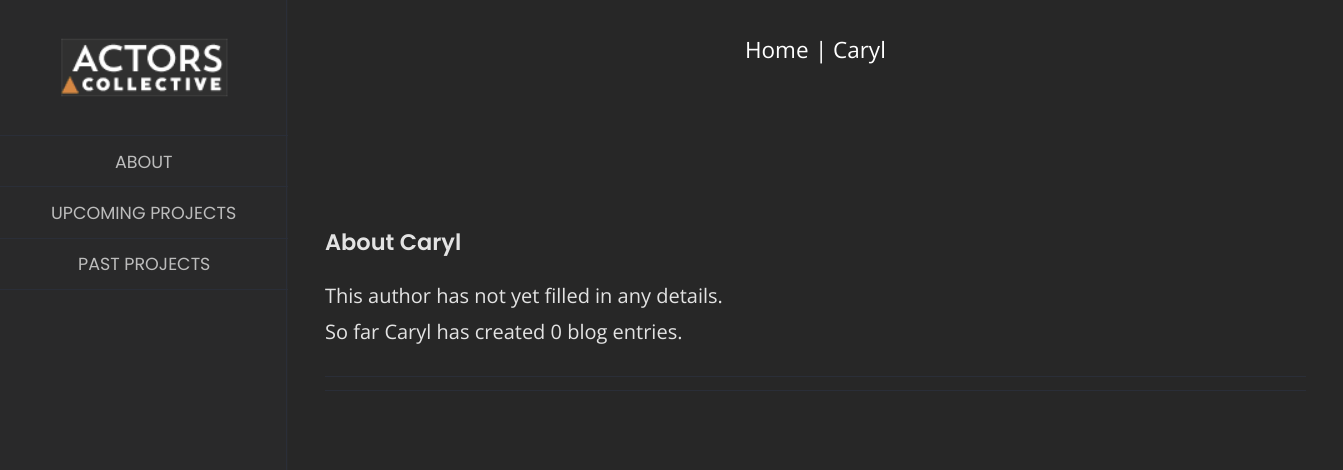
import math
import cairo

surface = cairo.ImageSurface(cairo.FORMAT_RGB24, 1343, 470)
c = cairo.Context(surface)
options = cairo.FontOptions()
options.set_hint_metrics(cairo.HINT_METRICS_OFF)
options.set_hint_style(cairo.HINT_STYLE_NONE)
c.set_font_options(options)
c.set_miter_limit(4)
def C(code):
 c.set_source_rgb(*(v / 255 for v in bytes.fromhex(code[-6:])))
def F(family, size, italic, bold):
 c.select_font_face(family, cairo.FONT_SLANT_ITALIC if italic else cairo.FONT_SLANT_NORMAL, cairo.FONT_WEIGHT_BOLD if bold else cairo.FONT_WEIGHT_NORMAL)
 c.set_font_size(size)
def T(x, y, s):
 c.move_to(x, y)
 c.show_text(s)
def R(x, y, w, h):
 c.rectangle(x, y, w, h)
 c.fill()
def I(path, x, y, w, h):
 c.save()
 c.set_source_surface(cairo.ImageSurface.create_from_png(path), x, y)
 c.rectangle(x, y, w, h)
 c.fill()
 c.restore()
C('272727')
c.paint()
F('Open Sans',22.5,0,0)
C('ffffff')
T(745,58,'Home')
T(815,58,'|')
T(833,58,'Caryl')
C('29292a')
R(0,0,288,470)
C('2a2e38')
R(286,0,1,470)
I('1.png',61,38,167,59)
R(0,135,288,1)
R(0,186,288,1)
F('Poppins',17.5,0,0)
C('bcbcbc')
T(115,168,'ABOUT')
C('2a2e38')
R(0,238,288,1)
C('bcbcbc')
T(51,219,'UPCOMING PROJECTS')
C('2a2e38')
R(0,289,288,1)
C('bcbcbc')
T(78,270,'PAST PROJECTS')
F('Poppins SemiBold',22.5,0,0)
C('e3e3e3')
T(325,250,'About Caryl')
F('Open Sans',20,0,0)
T(325,303,'This author has not yet filled in any details.')
T(325,339,'So far Caryl has created 0 blog entries.')
C('2a2e38')
R(325,376,981,1)
R(325,390,981,1)
surface.write_to_png('o.png')
